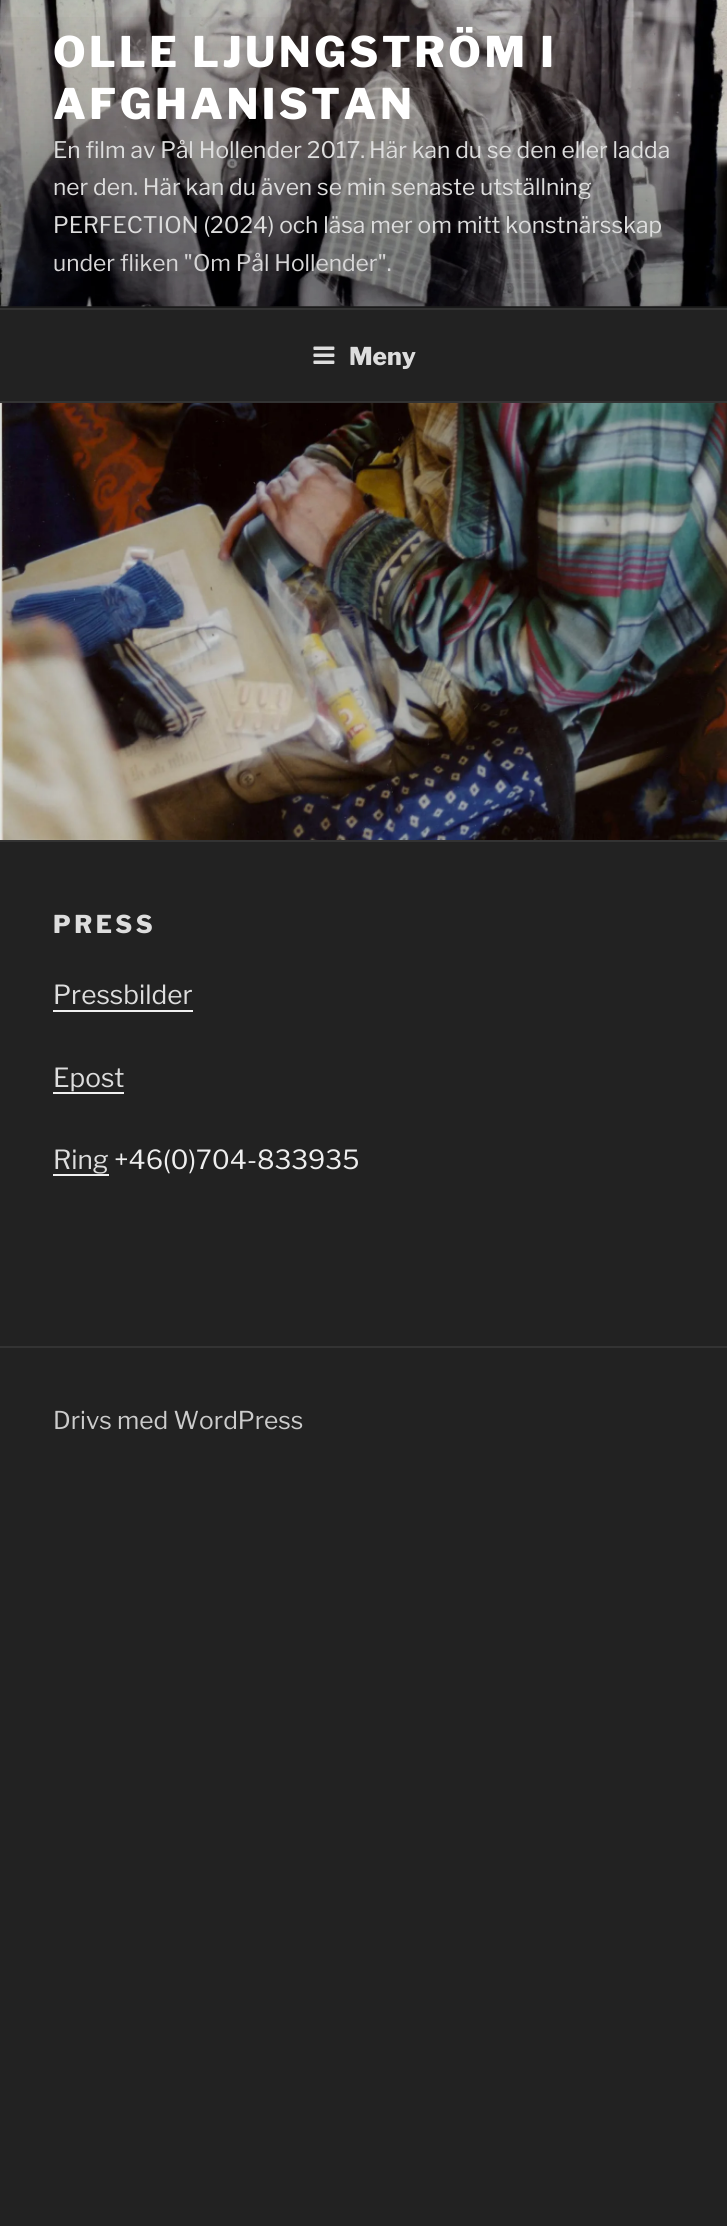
import math
import cairo

surface = cairo.ImageSurface(cairo.FORMAT_RGB24, 727, 2226)
c = cairo.Context(surface)
options = cairo.FontOptions()
options.set_hint_metrics(cairo.HINT_METRICS_OFF)
options.set_hint_style(cairo.HINT_STYLE_NONE)
c.set_font_options(options)
c.set_miter_limit(4)
def C(code):
 c.set_source_rgb(*(v / 255 for v in bytes.fromhex(code[-6:])))
def F(family, size, italic, bold):
 c.select_font_face(family, cairo.FONT_SLANT_ITALIC if italic else cairo.FONT_SLANT_NORMAL, cairo.FONT_WEIGHT_BOLD if bold else cairo.FONT_WEIGHT_NORMAL)
 c.set_font_size(size)
def T(x, y, s):
 c.move_to(x, y)
 c.show_text(s)
def L(x, y, s, letter, word):
 c.move_to(x, y)
 for ch in s:
  c.show_text(ch)
  c.rel_move_to(letter + word * (ch == ' '), 0)
def R(x, y, w, h):
 c.rectangle(x, y, w, h)
 c.fill()
def I(path, x, y, w, h):
 c.save()
 c.set_source_surface(cairo.ImageSurface.create_from_png(path), x, y)
 c.rectangle(x, y, w, h)
 c.fill()
 c.restore()
C('222222')
c.paint()
C('262626')
R(0,306,727,2)
I('1.png',0,0,727,307)
gradient = cairo.LinearGradient(364,0,364,308)
gradient.add_color_stop_rgba(0,0,0,0,0)
gradient.add_color_stop_rgba(.75,0,0,0,.3)
gradient.add_color_stop_rgba(1,0,0,0,.3)
c.set_source(gradient)
R(0,17,727,291)
F('Libre Franklin ExtraBold',42,0,0)
C('ffffff')
L(53,67,'OLLE LJUNGSTRÖM I',3.4,0)
L(53,119,'AFGHANISTAN',3.4,0)
F('Libre Franklin',22.75,0,0)
C('dddddd')
T(53,158,'En film av Pål Hollender 2017.')
T(369,158,'Här kan du se den eller ladda')
T(53,195,'ner den. Här kan du även se min senaste utställning')
T(53,233,'PERFECTION (2024) och läsa mer om mitt konstnärsskap')
C('d7d6d7')
T(53,271,'under fliken "Om Pål Hollender".')
C('333333')
R(0,308,727,2)
R(0,401,727,2)
I('2.png',313,346,22,18)
F('Libre Franklin ExtraBold',24.5,0,0)
C('dddddd')
T(349,365,'Meny')
C('333333')
R(0,840,727,2)
I('3.png',0,403,727,437)
C('dddddd')
L(53,933,'PRESS',3.5,0)
F('Libre Franklin',26.25,0,0)
T(53,1004,'Pressbilder')
C('f0f0f0')
R(53,1010,140,2)
C('dddddd')
T(53,1087,'Epost')
C('f0f0f0')
R(53,1092,71,2)
C('dddddd')
T(53,1169,'Ring')
C('f0f0f0')
R(53,1174,56,2)
C('eeeeee')
T(114,1169,'+46(0)704-833935')
C('333333')
R(0,1346,727,2)
F('Libre Franklin',24.5,0,0)
C('cccccc')
T(53,1429,'Drivs med WordPress')
surface.write_to_png('o.png')
